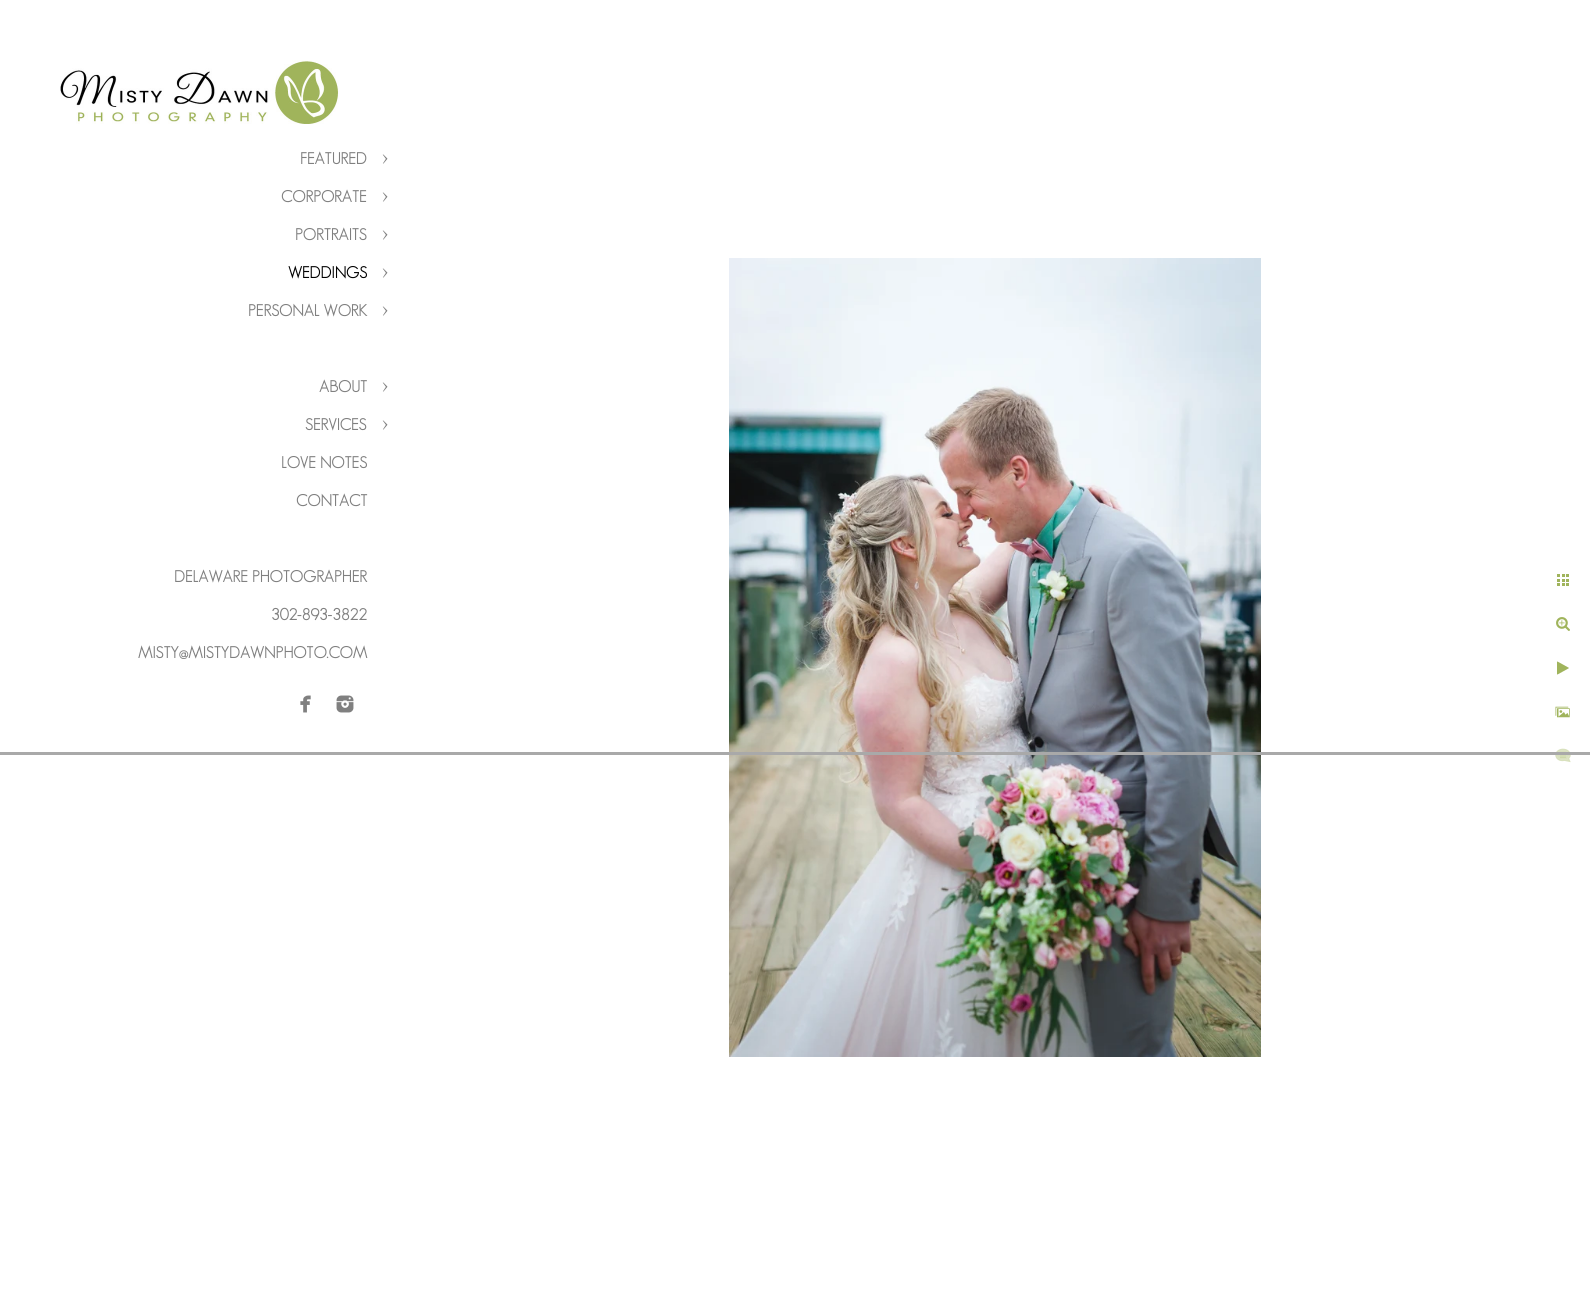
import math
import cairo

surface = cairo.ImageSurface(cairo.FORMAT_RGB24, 1590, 1316)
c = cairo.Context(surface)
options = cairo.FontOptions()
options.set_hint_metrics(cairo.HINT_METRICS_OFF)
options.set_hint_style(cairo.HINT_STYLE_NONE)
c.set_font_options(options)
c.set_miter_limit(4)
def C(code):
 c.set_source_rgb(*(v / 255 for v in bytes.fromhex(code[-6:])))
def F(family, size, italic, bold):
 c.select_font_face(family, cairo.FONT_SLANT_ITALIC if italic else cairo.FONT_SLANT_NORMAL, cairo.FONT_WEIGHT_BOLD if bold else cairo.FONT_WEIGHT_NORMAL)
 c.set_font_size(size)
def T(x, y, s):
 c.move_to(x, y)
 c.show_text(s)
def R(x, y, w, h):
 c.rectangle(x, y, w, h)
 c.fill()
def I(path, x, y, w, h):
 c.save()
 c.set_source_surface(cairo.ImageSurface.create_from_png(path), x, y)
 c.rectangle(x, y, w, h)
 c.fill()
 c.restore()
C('ffffff')
c.paint()
I('1.png',60,60,279,64)
F('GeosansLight',16,0,1)
C('808080')
T(300,164,'FEATURED')
I('2.png',382,154,6,10)
T(281,202,'CORPORATE')
I('2.png',382,192,6,10)
T(295,240,'PORTRAITS')
I('2.png',382,230,6,10)
C('000000')
T(288,278,'WEDDINGS')
I('2.png',382,268,6,10)
C('808080')
T(248,316,'PERSONAL WORK')
I('2.png',382,306,6,10)
T(319,392,'ABOUT')
I('2.png',382,382,6,10)
T(305,430,'SERVICES')
I('2.png',382,420,6,10)
T(281,468,'LOVE NOTES')
T(296,506,'CONTACT')
T(174,582,'DELAWARE PHOTOGRAPHER')
T(271,620,'302-893-3822')
T(138,658,'MISTY@MISTYDAWNPHOTO.COM')
I('3.png',300,695,11,18)
I('4.png',336,695,18,18)
I('5.png',729,258,532,799)
I('6.png',1557,574,12,12)
I('7.png',1556,617,14,14)
I('8.png',1557,661,12,14)
I('9.png',1555,706,15,12)
I('10.png',1555,748,16,15)
C('a9a9a9')
R(0,752,1590,3)
surface.write_to_png('o.png')
